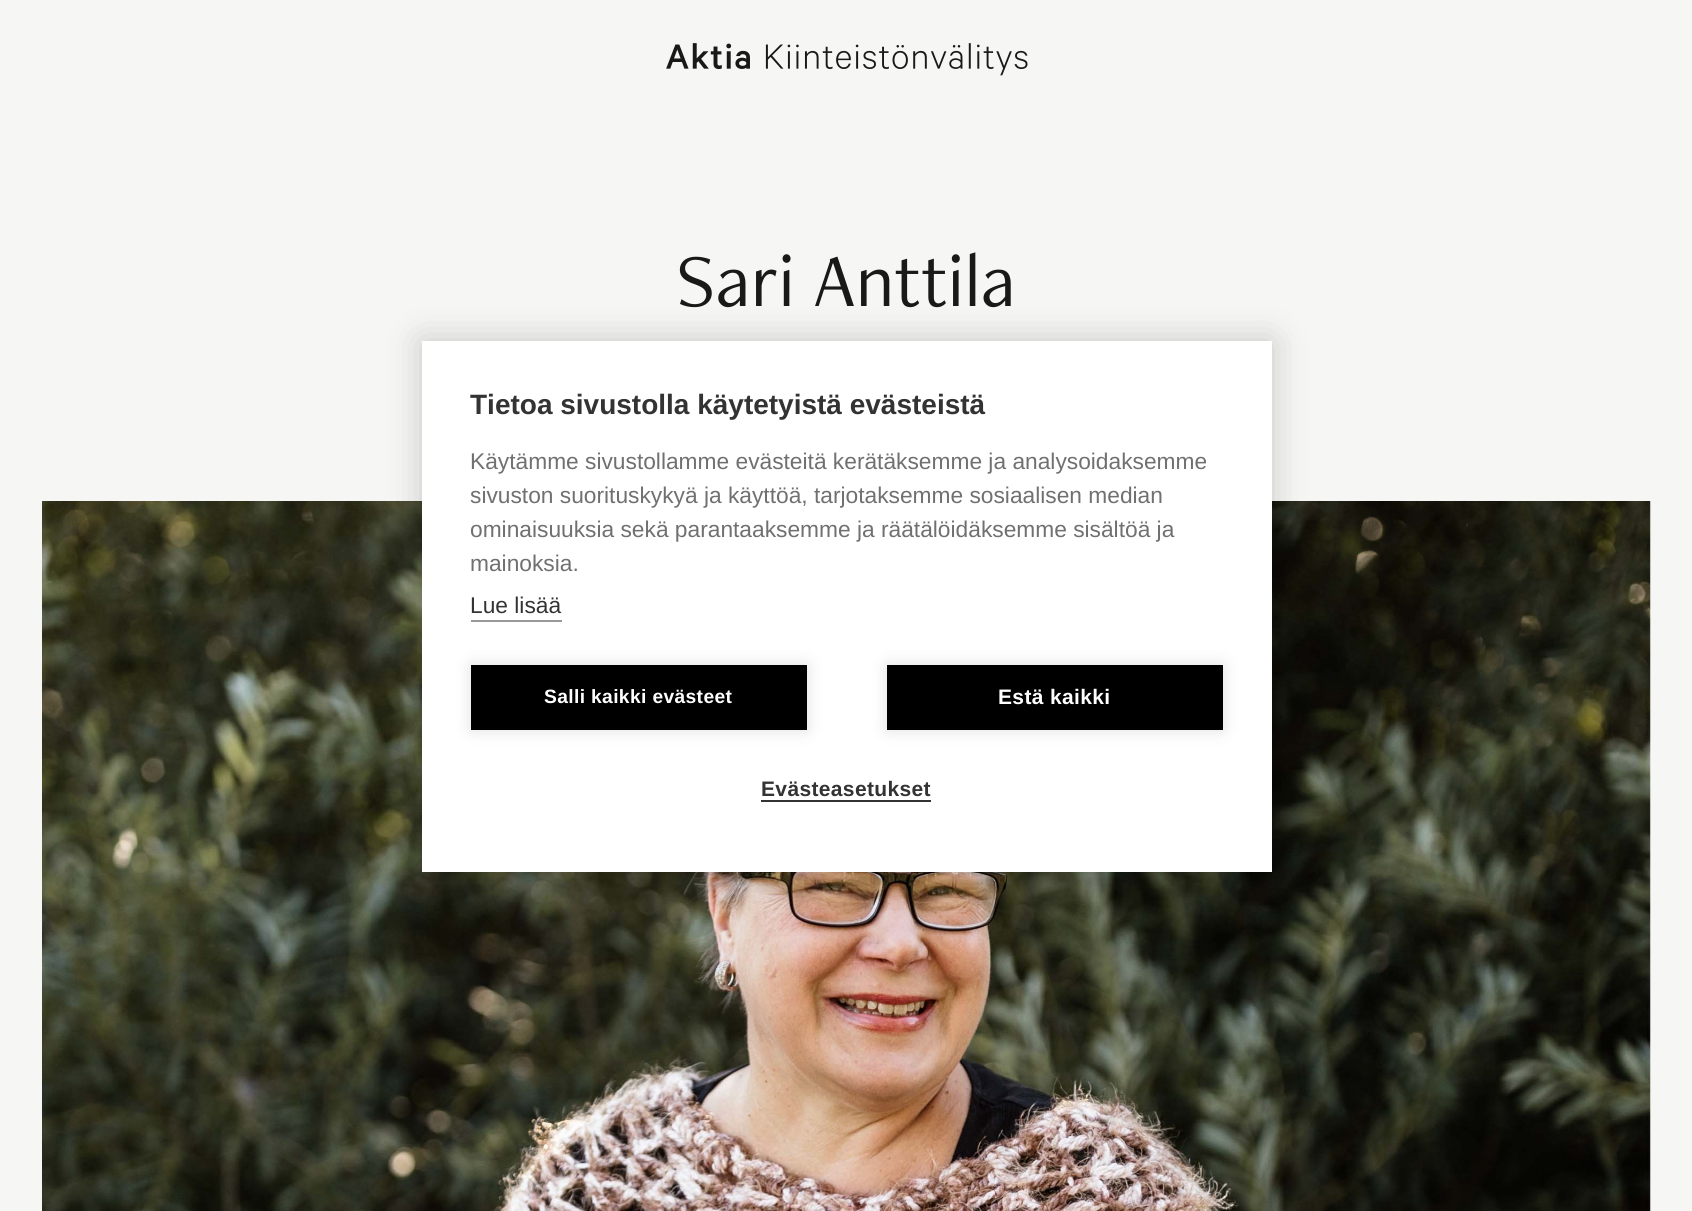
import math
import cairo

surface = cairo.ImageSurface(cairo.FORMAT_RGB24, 1692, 1211)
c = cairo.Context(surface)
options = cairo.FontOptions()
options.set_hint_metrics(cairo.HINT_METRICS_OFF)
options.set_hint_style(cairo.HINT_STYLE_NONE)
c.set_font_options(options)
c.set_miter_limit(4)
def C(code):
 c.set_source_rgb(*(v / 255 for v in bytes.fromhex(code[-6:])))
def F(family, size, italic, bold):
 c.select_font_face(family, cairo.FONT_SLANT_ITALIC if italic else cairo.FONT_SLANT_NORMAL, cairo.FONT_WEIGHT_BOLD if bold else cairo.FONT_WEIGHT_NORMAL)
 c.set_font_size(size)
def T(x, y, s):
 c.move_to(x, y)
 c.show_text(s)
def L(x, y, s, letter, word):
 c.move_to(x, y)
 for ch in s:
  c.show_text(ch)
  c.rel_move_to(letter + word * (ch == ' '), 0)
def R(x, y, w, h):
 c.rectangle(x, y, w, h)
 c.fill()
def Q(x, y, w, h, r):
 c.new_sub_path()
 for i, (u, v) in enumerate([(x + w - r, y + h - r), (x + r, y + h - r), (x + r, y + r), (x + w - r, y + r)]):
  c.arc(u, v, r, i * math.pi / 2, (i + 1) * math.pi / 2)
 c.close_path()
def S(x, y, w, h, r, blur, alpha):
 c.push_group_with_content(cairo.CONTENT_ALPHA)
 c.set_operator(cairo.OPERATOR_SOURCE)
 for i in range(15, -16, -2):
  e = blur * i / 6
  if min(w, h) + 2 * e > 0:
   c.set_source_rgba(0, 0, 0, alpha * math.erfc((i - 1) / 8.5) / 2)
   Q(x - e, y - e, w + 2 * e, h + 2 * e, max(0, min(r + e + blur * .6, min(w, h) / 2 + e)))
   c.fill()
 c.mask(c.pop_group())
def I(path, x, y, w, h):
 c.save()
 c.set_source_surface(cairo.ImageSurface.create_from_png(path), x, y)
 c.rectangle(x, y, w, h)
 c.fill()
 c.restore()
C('f6f6f4')
c.paint()
I('1.png',666,43,362,33)
F('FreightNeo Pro',77,0,0)
C('191919')
T(676,306,'Sari Anttila')
I('2.png',42,501,1609,710)
C('000000')
S(422,341,850,531,0,17.5,.2)
C('ffffff')
R(422,341,850,531)
F('Liberation Sans',28,0,1)
C('333333')
T(470,414,'Tietoa sivustolla käytetyistä evästeistä')
F('Liberation Sans',22.75,0,0)
C('707070')
T(470,469,'Käytämme sivustollamme evästeitä kerätäksemme ja analysoidaksemme')
T(470,503,'sivuston suorituskykyä ja käyttöä, tarjotaksemme sosiaalisen median')
T(470,537,'ominaisuuksia sekä parantaaksemme ja räätälöidäksemme sisältöä ja')
T(470,571,'mainoksia.')
C('333333')
T(470,613,'Lue lisää')
C('999999')
R(471,620,91,2)
C('000000')
S(471,665,336,65,0,9,.12)
C('000000')
R(471,665,336,65)
F('Liberation Sans',19.25,0,1)
C('ffffff')
L(544,703,'Salli kaikki evästeet',.35,0)
C('000000')
S(887,665,336,65,0,9,.12)
C('000000')
R(887,665,336,65)
F('Liberation Sans',21,0,1)
C('ffffff')
L(998,704,'Estä kaikki',.35,0)
C('333333')
L(761,796,'Evästeasetukset',.35,0)
R(761,800,170,2)
surface.write_to_png('o.png')
